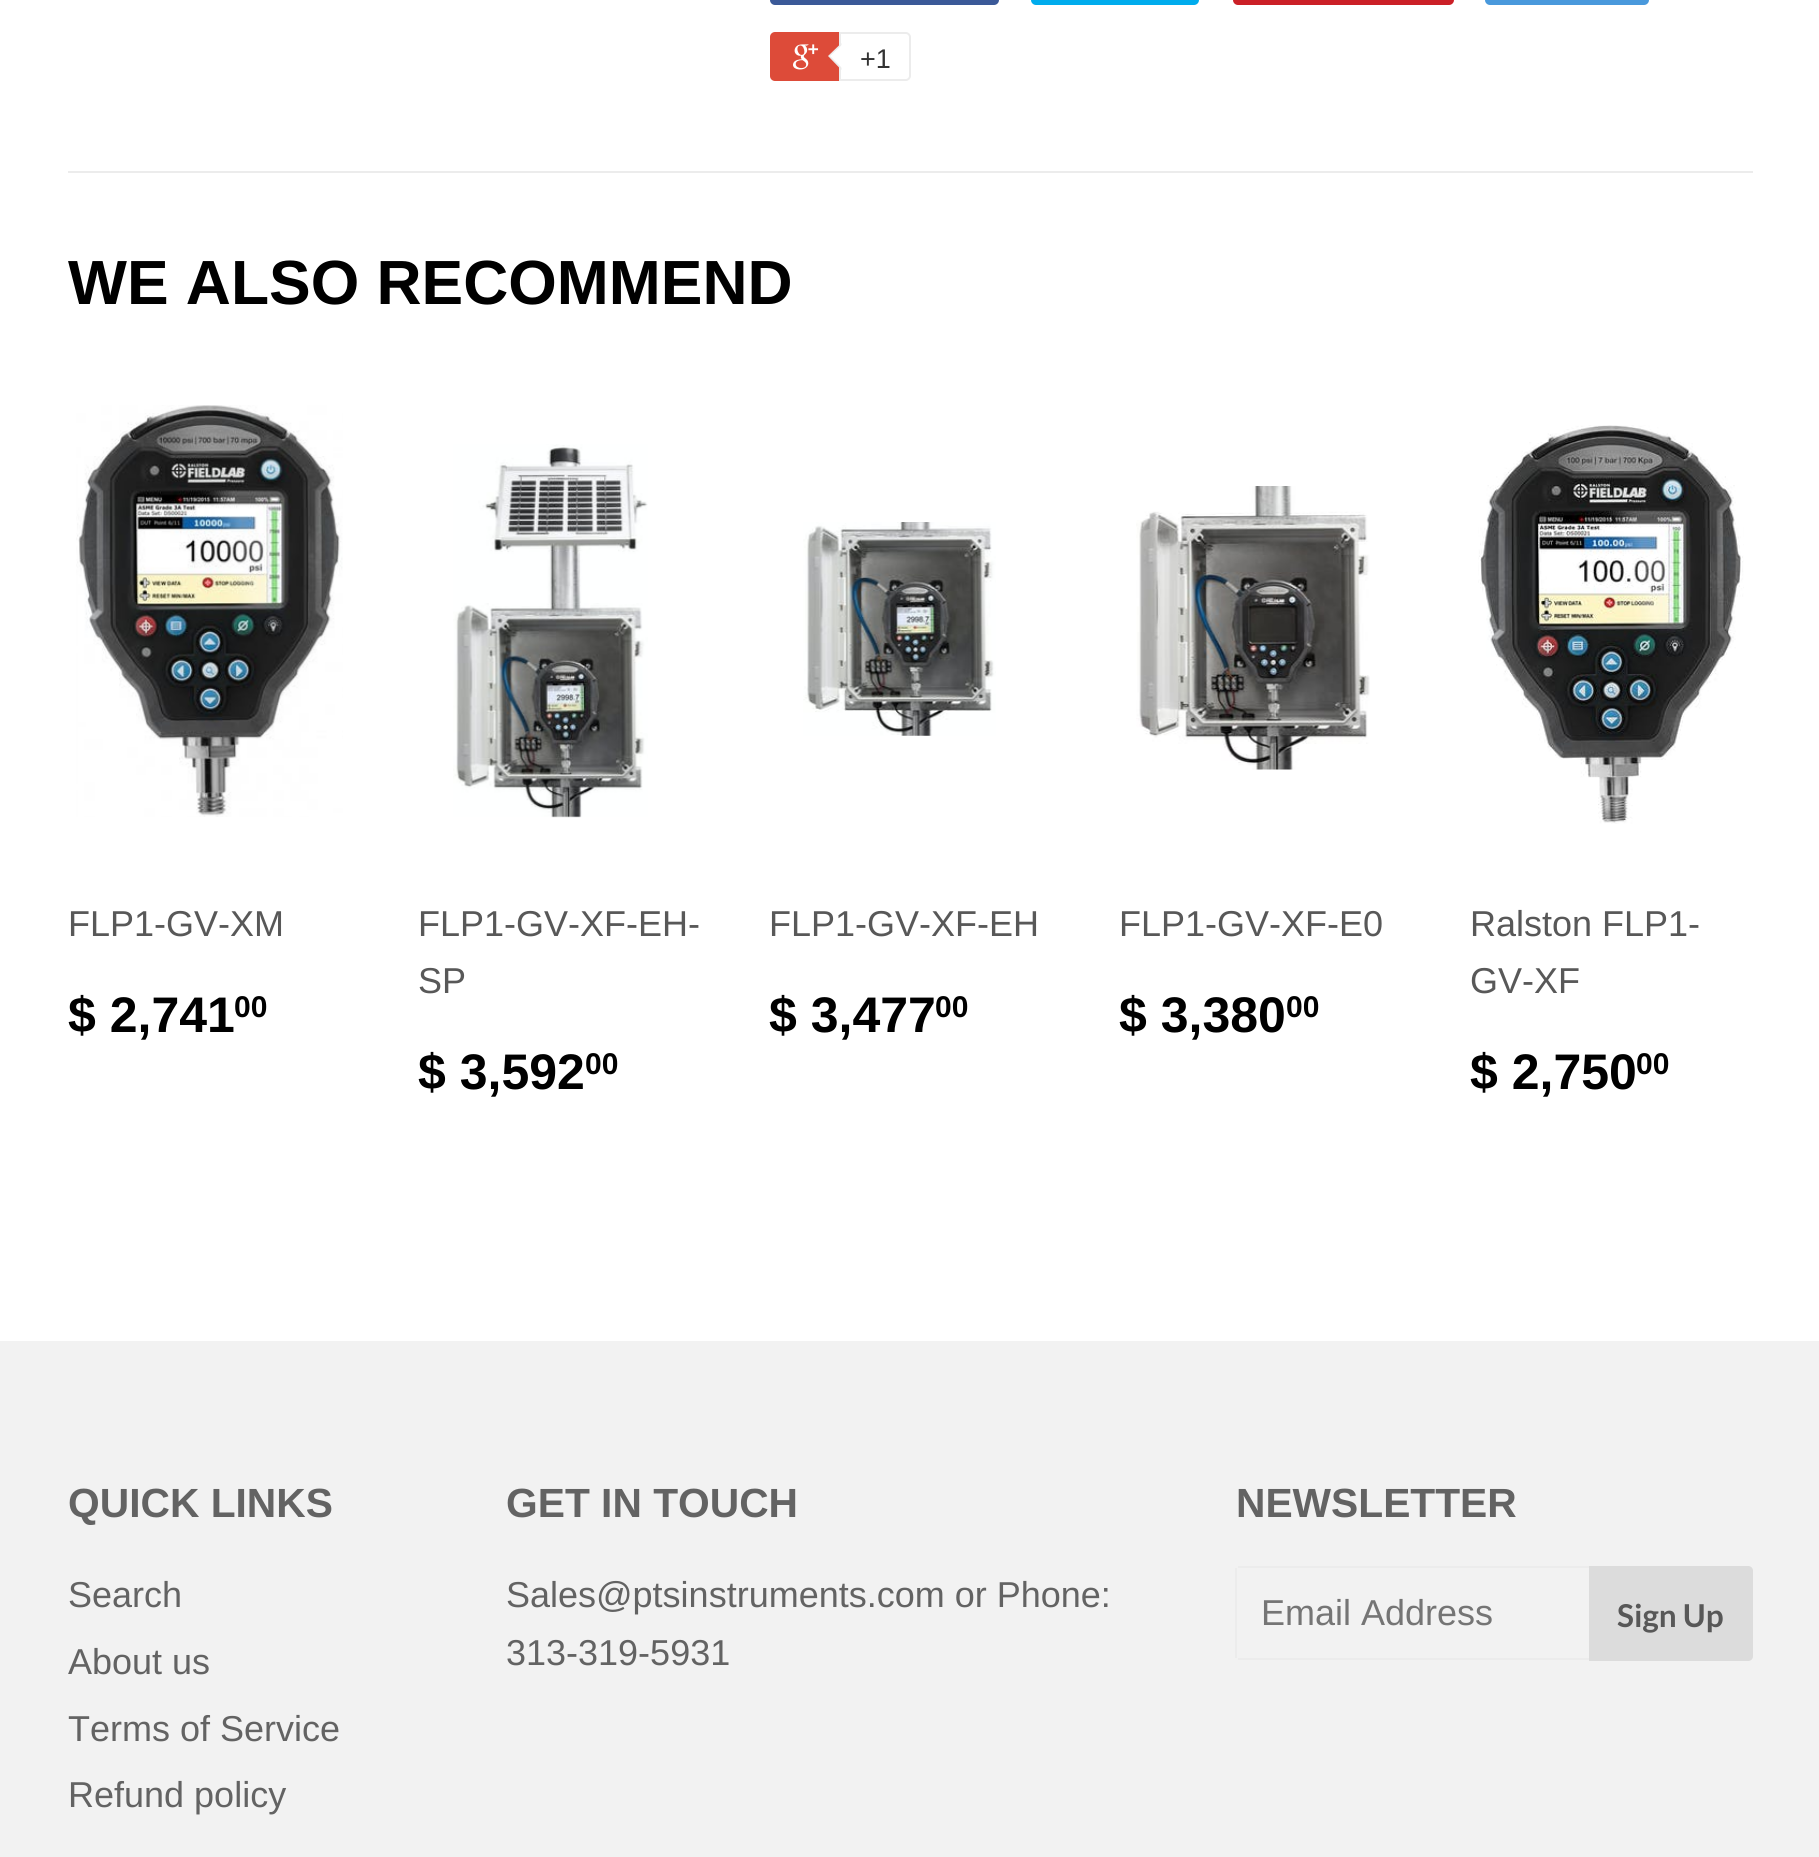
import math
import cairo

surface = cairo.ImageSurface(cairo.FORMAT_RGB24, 1819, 1857)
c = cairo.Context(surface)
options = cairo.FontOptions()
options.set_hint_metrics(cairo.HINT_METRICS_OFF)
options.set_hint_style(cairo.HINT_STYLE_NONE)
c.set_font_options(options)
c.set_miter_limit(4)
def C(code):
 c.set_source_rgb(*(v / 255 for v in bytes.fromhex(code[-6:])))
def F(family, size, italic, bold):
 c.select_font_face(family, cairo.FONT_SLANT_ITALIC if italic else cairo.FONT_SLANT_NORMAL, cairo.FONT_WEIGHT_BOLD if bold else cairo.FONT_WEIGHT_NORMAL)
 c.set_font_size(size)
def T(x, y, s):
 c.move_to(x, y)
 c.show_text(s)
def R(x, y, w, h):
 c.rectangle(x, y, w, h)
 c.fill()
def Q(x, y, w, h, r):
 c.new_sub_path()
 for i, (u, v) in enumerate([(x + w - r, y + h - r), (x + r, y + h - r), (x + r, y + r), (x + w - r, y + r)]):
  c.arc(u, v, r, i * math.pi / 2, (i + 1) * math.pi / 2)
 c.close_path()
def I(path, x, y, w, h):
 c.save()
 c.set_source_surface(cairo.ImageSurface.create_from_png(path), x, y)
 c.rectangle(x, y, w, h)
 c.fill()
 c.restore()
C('ffffff')
c.paint()
C('3b5998')
Q(770,-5,229,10,5)
c.fill()
C('00aced')
Q(1031,-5,168,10,5)
c.fill()
C('cb2027')
Q(1233,-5,221,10,5)
c.fill()
C('4999dc')
Q(1485,-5,164,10,5)
c.fill()
C('dd4b39')
Q(770,32,137,49,5)
c.fill()
I('1.png',793,44,26,26)
C('ffffff')
c.new_path()
c.move_to(840,33)
c.line_to(906,33)
c.curve_to(908,33,910,35,910,37)
c.line_to(910,76)
c.curve_to(910,78,908,80,906,80)
c.line_to(840,80)
c.close_path()
c.fill_preserve()
C('ececec')
c.stroke()
c.new_path()
c.move_to(841.5,43)
c.line_to(841.5,70)
c.line_to(828,56)
c.close_path()
c.fill()
C('ffffff')
c.new_path()
c.move_to(844,43)
c.line_to(844,70)
c.line_to(830,56)
c.close_path()
c.fill()
F('Liberation Sans',27,0,0)
C('333333')
T(860,68,'+1')
C('ececec')
R(68,171,1685,2)
F('Liberation Sans',62.4,0,1)
C('000000')
T(68,304,'WE ALSO RECOMMEND')
I('2.png',76,405,267,412)
F('Liberation Sans',36,0,0)
C('585858')
T(68,936,'FLP1-GV-XM')
F('Liberation Sans',50,0,1)
C('000000')
T(68,1032,'$ 2,741')
F('Liberation Sans',30,0,1)
T(234,1017,'00')
I('3.png',453,444,195,374)
F('Liberation Sans',36,0,0)
C('585858')
T(418,936,'FLP1-GV-XF-EH-')
T(418,993,'SP')
F('Liberation Sans',50,0,1)
C('000000')
T(418,1089,'$ 3,592')
F('Liberation Sans',30,0,1)
T(585,1074,'00')
I('4.png',803,522,193,214)
F('Liberation Sans',36,0,0)
C('585858')
T(769,936,'FLP1-GV-XF-EH')
F('Liberation Sans',50,0,1)
C('000000')
T(769,1032,'$ 3,477')
F('Liberation Sans',30,0,1)
T(935,1017,'00')
I('5.png',1136,486,234,284)
F('Liberation Sans',36,0,0)
C('585858')
T(1119,936,'FLP1-GV-XF-E0')
F('Liberation Sans',50,0,1)
C('000000')
T(1119,1032,'$ 3,380')
F('Liberation Sans',30,0,1)
T(1286,1017,'00')
I('6.png',1478,425,266,399)
F('Liberation Sans',36,0,0)
C('585858')
T(1470,936,'Ralston FLP1-')
T(1470,993,'GV-XF')
F('Liberation Sans',50,0,1)
C('000000')
T(1470,1089,'$ 2,750')
F('Liberation Sans',30,0,1)
T(1636,1074,'00')
C('f2f2f2')
R(0,1341,1819,516)
F('Liberation Sans',40.75,0,1)
C('636363')
T(68,1517,'QUICK LINKS')
F('Liberation Sans',36,0,0)
T(68,1607,'Search')
T(68,1674,'About us')
T(68,1741,'Terms of Service')
T(68,1807,'Refund policy')
F('Liberation Sans',40.75,0,1)
T(506,1517,'GET IN TOUCH')
F('Liberation Sans',36,0,0)
T(506,1607,'Sales@ptsinstruments.com or Phone:')
T(506,1665,'313-319-5931')
F('Liberation Sans',40.75,0,1)
T(1236,1517,'NEWSLETTER')
C('ececec')
R(1238,1566,351,2)
R(1238,1658,351,2)
R(1235,1568,2,90)
F('Liberation Sans',36,0,0)
C('757575')
T(1261,1625,'Email Address')
C('dcdcdc')
c.new_path()
c.move_to(1589,1566)
c.line_to(1748,1566)
c.curve_to(1751,1566,1753,1568,1753,1571)
c.line_to(1753,1656)
c.curve_to(1753,1659,1751,1661,1748,1661)
c.line_to(1589,1661)
c.close_path()
c.fill()
F('Lato',31.5,0,1)
C('585858')
T(1617,1627,'Sign Up')
surface.write_to_png('o.png')
